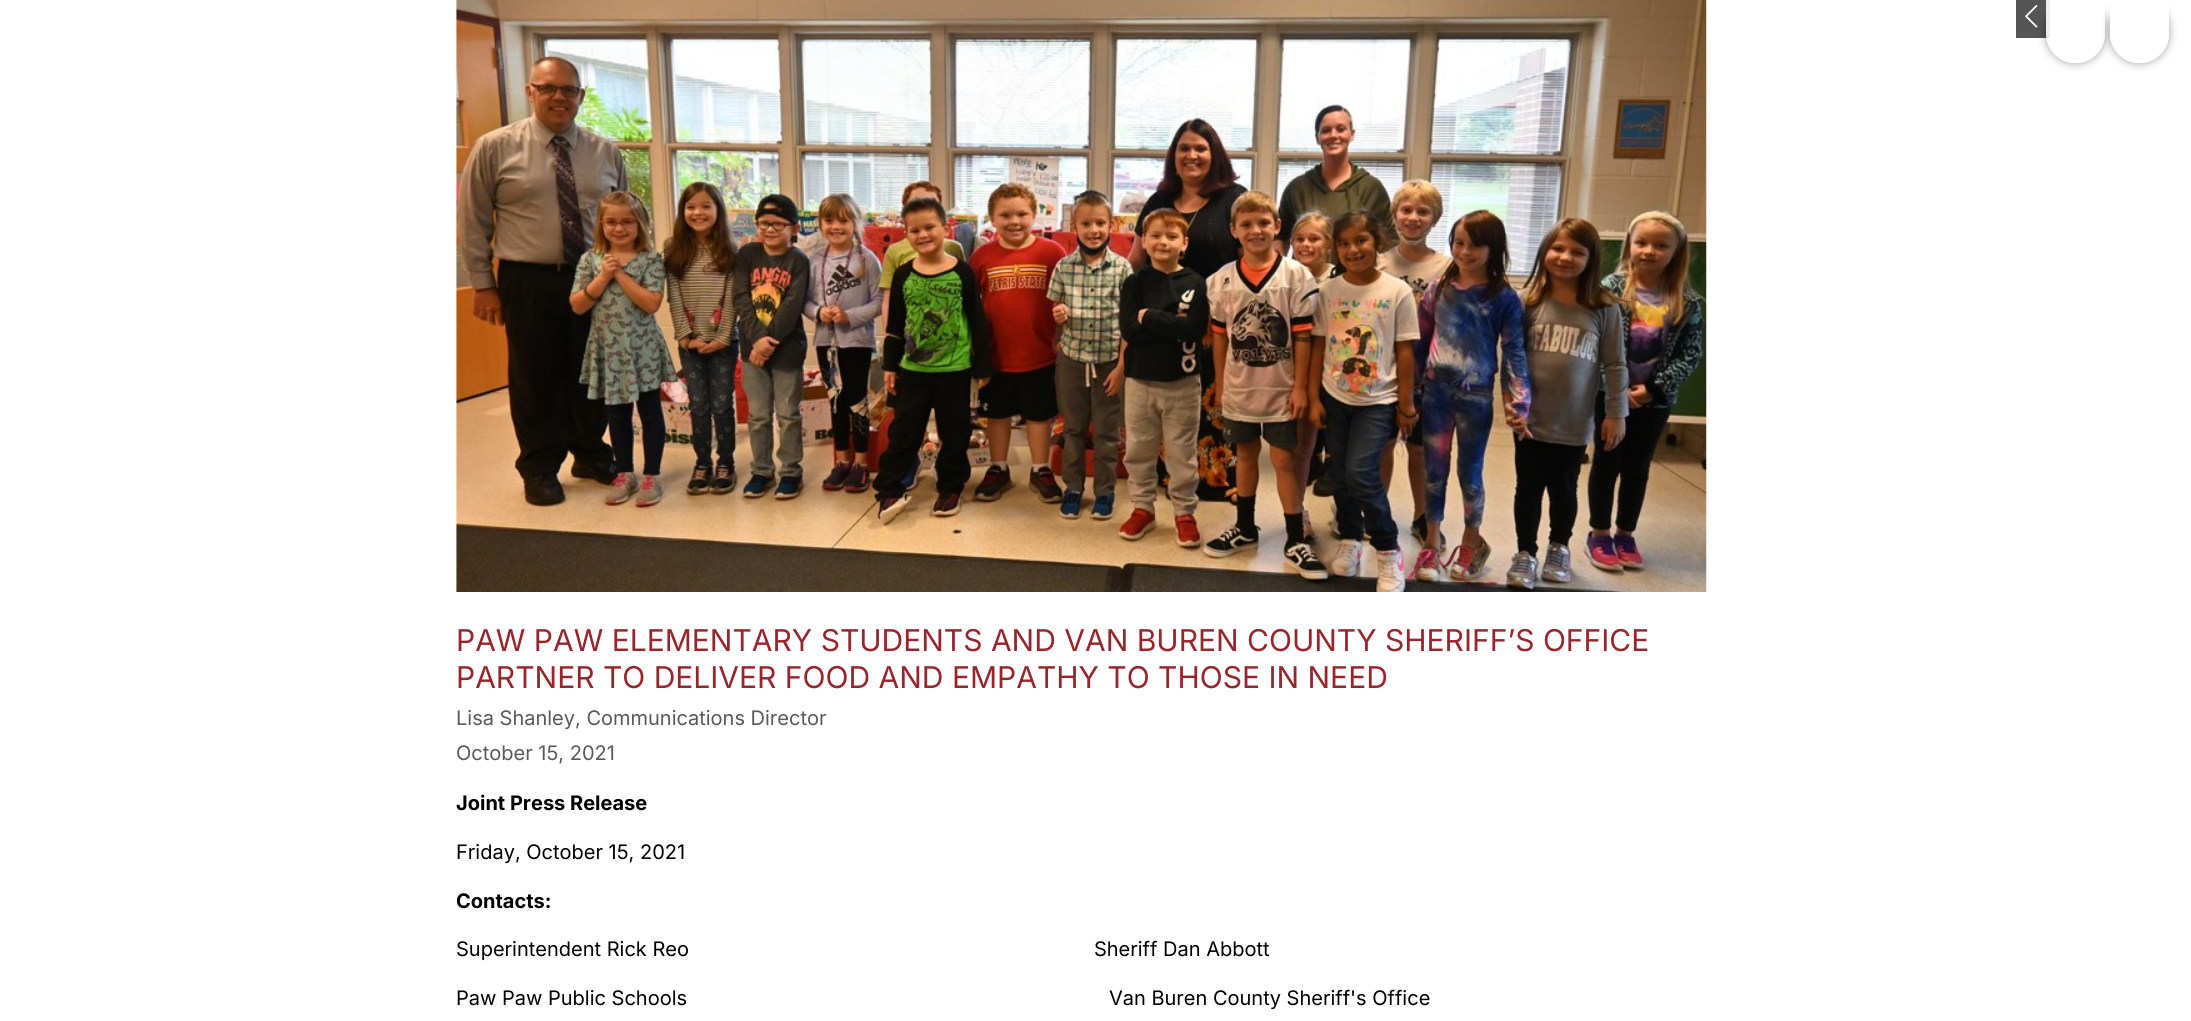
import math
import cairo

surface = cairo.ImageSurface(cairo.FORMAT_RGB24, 2191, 1021)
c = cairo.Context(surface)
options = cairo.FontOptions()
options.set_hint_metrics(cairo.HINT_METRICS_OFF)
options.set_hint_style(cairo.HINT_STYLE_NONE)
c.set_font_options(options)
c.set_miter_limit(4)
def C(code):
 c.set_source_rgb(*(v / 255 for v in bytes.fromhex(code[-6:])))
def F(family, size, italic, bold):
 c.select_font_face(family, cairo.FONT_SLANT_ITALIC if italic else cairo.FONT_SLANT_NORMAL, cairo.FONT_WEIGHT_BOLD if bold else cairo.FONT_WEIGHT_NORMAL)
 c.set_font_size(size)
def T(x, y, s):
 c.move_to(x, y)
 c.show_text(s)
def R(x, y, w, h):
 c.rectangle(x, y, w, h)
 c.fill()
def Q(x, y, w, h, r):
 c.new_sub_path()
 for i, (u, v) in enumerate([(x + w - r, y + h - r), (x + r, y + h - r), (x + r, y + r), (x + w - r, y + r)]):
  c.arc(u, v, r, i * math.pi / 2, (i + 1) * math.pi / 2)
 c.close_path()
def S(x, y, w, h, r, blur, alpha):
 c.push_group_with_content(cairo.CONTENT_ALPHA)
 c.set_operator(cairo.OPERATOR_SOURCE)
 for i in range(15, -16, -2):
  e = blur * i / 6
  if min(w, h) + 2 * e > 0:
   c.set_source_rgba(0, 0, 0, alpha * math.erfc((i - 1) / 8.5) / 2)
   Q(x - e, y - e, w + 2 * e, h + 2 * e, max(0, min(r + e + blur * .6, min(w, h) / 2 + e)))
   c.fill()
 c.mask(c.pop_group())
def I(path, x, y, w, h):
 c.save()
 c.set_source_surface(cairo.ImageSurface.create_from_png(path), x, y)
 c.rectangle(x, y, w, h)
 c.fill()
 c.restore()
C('ffffff')
c.paint()
C('555555')
R(2016,0,34,38)
I('1.png',2025,5,13,23)
c.save()
c.set_fill_rule(cairo.FILL_RULE_EVEN_ODD)
c.new_path()
c.move_to(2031,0)
c.line_to(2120,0)
c.line_to(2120,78)
c.line_to(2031,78)
c.close_path()
c.move_to(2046,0)
c.line_to(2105,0)
c.line_to(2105,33.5)
c.curve_to(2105,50,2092,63,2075.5,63)
c.curve_to(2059,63,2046,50,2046,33.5)
c.close_path()
c.clip()
C('000000')
S(2046,0,59,63,29.5,4.5,.36)
c.restore()
c.set_source_rgba(1,1,1,0.9)
c.new_path()
c.move_to(2046,0)
c.line_to(2105,0)
c.line_to(2105,33.5)
c.curve_to(2105,50,2092,63,2075.5,63)
c.curve_to(2059,63,2046,50,2046,33.5)
c.close_path()
c.fill()
c.save()
c.set_fill_rule(cairo.FILL_RULE_EVEN_ODD)
c.new_path()
c.move_to(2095,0)
c.line_to(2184,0)
c.line_to(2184,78)
c.line_to(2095,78)
c.close_path()
c.move_to(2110,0)
c.line_to(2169,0)
c.line_to(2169,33.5)
c.curve_to(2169,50,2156,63,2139.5,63)
c.curve_to(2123,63,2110,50,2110,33.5)
c.close_path()
c.clip()
C('000000')
S(2110,0,59,63,29.5,4.5,.36)
c.restore()
c.new_path()
c.move_to(2110,0)
c.line_to(2169,0)
c.line_to(2169,33.5)
c.curve_to(2169,50,2156,63,2139.5,63)
c.curve_to(2123,63,2110,50,2110,33.5)
c.close_path()
c.fill()
I('2.png',456,0,1251,592)
F('Inter',30,0,0)
C('96262c')
T(456,651,'PAW PAW ELEMENTARY STUDENTS AND VAN BUREN COUNTY SHERIFF’S OFFICE')
T(456,688,'PARTNER TO DELIVER FOOD AND EMPATHY TO THOSE IN NEED')
F('Inter',20,0,0)
C('595959')
T(456,725,'Lisa Shanley, Communications Director')
T(456,760,'October 15, 2021')
F('Inter',20,0,1)
C('000000')
T(456,810,'Joint Press Release')
F('Inter',20,0,0)
T(456,859,'Friday, October 15, 2021')
F('Inter',20,0,1)
T(456,908,'Contacts:')
F('Inter',20,0,0)
T(456,956,'Superintendent Rick Reo                                                                        Sheriff Dan Abbott')
T(456,1005,'Paw Paw Public Schools                                                                           Van Buren County Sheriff\'s Office')
surface.write_to_png('o.png')
